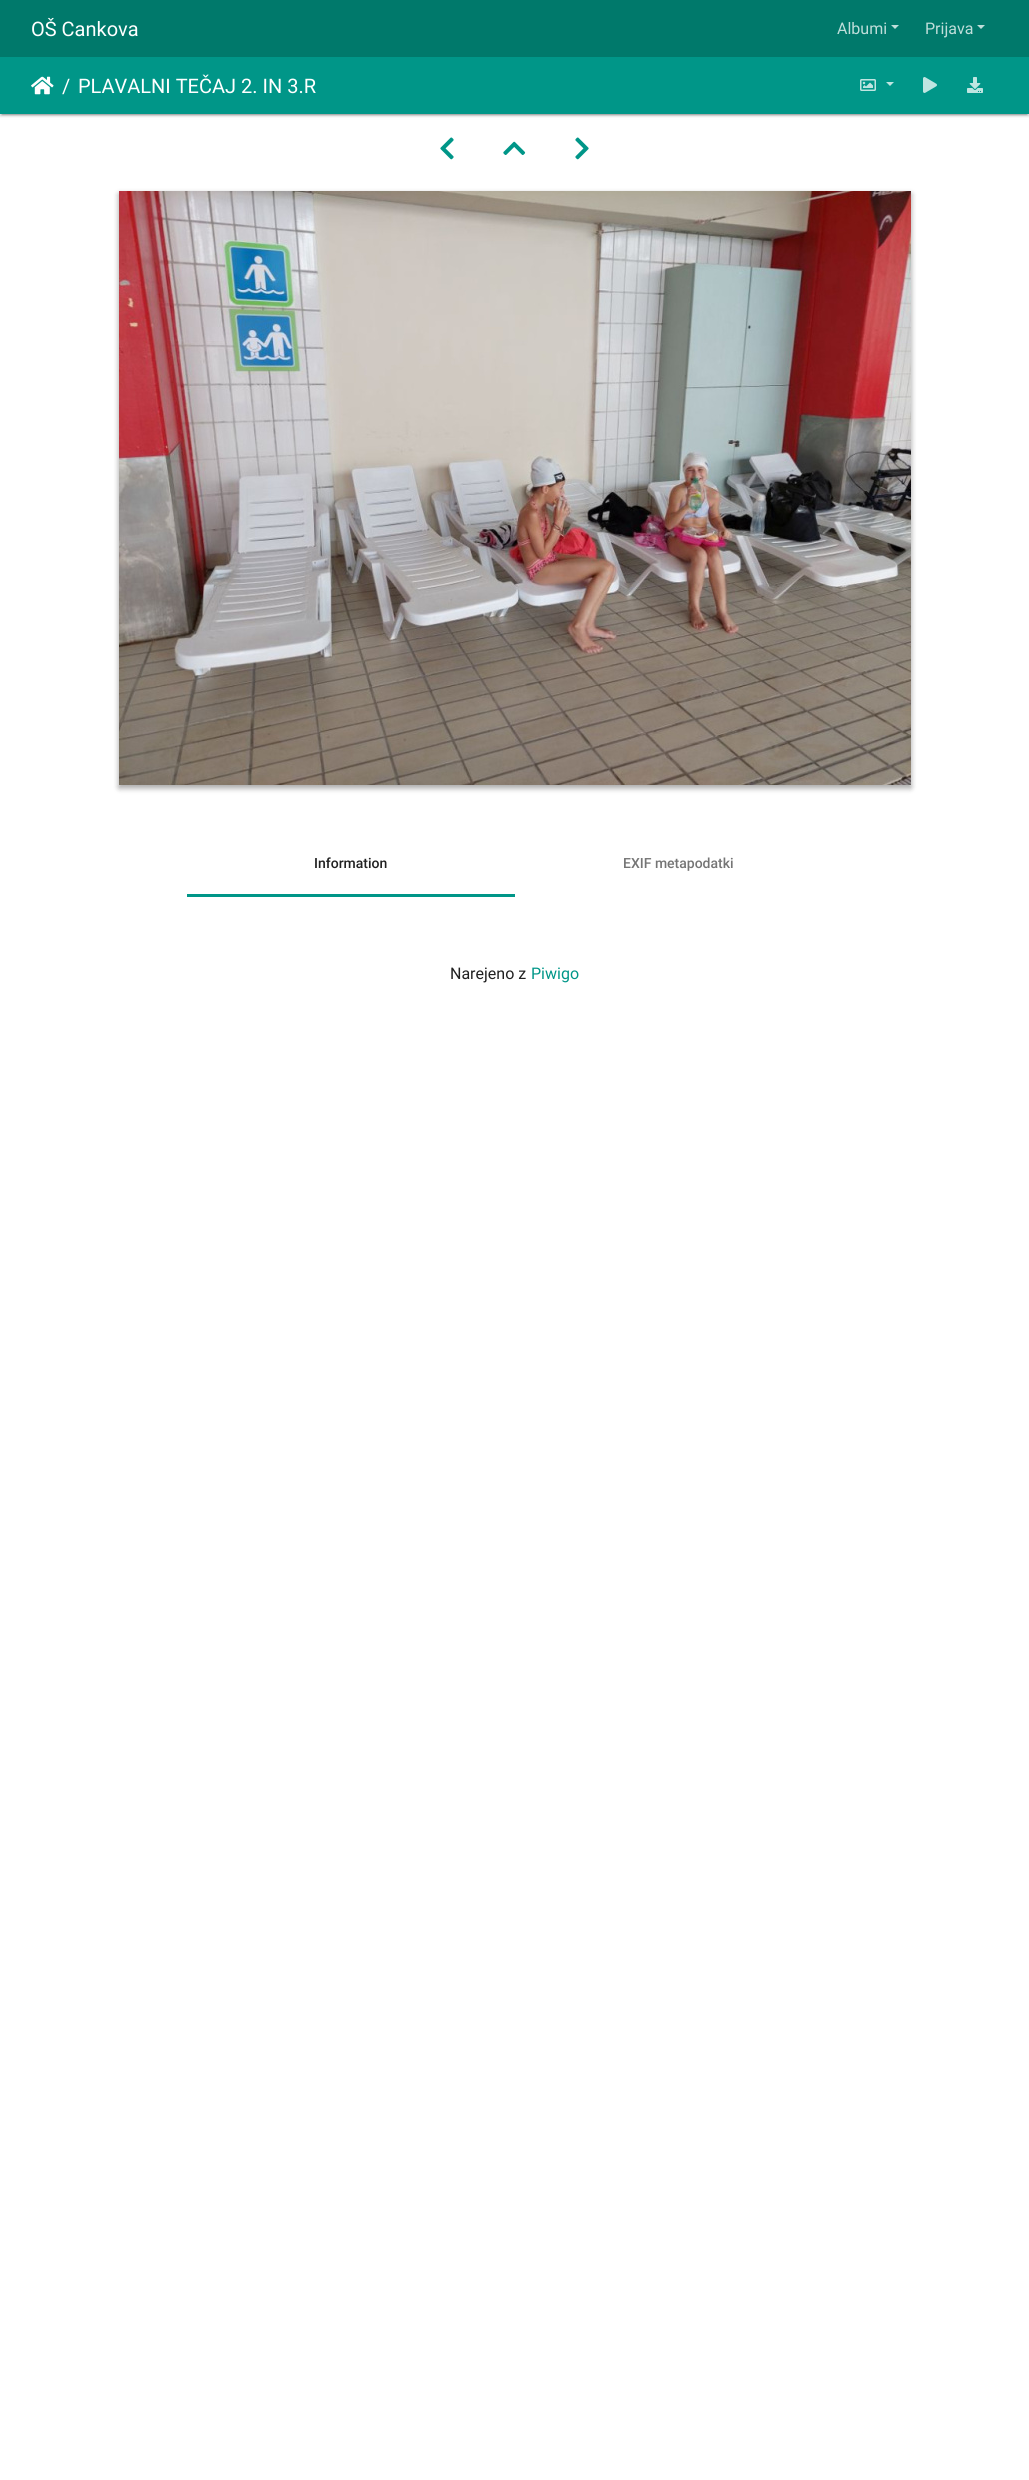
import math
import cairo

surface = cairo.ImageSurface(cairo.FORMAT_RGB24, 1029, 2480)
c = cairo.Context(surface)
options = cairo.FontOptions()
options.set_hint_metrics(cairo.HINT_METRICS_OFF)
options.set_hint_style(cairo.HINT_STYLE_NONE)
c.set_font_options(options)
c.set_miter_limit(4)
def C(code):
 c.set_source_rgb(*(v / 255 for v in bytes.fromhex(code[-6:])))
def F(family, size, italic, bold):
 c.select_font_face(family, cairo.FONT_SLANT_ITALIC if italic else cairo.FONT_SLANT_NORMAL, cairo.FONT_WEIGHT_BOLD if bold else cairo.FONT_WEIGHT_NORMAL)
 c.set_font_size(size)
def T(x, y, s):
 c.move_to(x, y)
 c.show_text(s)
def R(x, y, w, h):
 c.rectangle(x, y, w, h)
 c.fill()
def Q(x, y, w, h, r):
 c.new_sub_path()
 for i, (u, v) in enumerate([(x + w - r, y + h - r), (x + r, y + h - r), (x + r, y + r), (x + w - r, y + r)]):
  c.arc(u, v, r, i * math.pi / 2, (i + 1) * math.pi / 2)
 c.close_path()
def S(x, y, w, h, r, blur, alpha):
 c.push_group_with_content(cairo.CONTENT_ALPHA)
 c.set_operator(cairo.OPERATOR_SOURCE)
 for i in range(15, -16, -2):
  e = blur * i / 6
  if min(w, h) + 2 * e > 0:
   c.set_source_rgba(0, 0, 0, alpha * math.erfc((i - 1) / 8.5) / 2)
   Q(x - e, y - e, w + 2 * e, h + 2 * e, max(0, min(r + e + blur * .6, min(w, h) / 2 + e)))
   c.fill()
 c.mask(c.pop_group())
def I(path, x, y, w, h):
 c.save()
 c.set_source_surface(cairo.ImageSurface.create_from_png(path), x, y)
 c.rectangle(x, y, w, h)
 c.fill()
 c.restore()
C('ffffff')
c.paint()
C('000000')
S(0,58,1029,57,0,2.5,.12)
S(0,59,1029,57,0,1,.14)
C('00796b')
R(0,0,1029,57)
F('Roboto',20,0,0)
C('ffffff')
T(31,36,'OŠ Cankova')
F('Roboto',16,0,0)
C('bfdeda')
T(837,34,'Albumi')
c.new_path()
c.move_to(891,25)
c.line_to(899,25)
c.line_to(895,29)
c.close_path()
c.fill()
T(925,34,'Prijava')
c.new_path()
c.move_to(977,25)
c.line_to(985,25)
c.line_to(981,29)
c.close_path()
c.fill()
C('000000')
S(2,62,1025,53,0,.5,.2)
C('009688')
R(0,57,1029,57)
I('1.png',31,76,23,19)
F('Roboto',20,0,0)
C('ffffff')
T(62,93,'/')
T(78,93,'PLAVALNI TEČAJ 2. IN 3.R')
I('2.png',860,79,16,12)
C('bfe5e1')
c.new_path()
c.move_to(886,82)
c.line_to(894,82)
c.line_to(890,86)
c.close_path()
c.fill()
I('3.png',923,77,14,16)
I('4.png',967,77,16,16)
I('5.png',440,137,14,23)
I('6.png',503,141,23,14)
I('7.png',575,137,14,23)
C('000000')
S(119,194,792,594,0,3,.23)
S(119,194,792,594,0,3,.16)
I('8.png',119,191,792,594)
C('009688')
R(187,894,328,3)
F('Roboto Medium',14,0,0)
C('212121')
T(314,868,'Information')
C('757575')
T(623,868,'EXIF metapodatki')
F('Roboto',16,0,0)
C('212121')
T(450,979,'Narejeno z')
C('009688')
T(531,979,'Piwigo')
surface.write_to_png('o.png')
